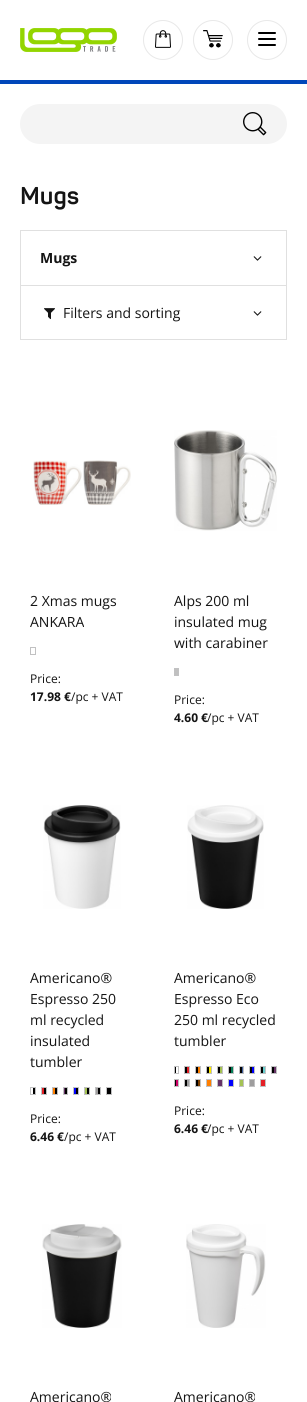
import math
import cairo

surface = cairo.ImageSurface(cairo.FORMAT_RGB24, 307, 1402)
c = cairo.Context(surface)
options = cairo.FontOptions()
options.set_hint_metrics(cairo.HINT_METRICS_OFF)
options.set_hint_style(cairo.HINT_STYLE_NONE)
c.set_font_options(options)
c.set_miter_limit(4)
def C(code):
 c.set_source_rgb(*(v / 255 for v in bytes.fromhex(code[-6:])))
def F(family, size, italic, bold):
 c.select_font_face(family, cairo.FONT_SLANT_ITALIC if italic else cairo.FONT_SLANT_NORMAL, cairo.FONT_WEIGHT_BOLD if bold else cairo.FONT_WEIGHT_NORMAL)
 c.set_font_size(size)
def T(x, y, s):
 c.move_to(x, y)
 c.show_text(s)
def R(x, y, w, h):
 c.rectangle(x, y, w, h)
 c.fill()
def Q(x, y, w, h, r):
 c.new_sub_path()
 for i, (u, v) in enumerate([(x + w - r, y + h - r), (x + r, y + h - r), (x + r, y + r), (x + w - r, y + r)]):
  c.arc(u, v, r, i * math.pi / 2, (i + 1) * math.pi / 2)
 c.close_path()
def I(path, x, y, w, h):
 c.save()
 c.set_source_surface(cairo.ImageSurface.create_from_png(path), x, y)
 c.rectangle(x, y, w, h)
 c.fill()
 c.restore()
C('ffffff')
c.paint()
C('0047ba')
R(0,80,307,4)
I('1.png',20,28,97,24)
c.arc(163,40,19.5,0,2 * math.pi)
C('e8e8e8')
c.set_line_width(1)
c.stroke()
I('2.png',155,30,16,18)
c.arc(213,40,19.5,0,2 * math.pi)
c.stroke()
I('3.png',203,30,20,18)
c.arc(267,40,19.5,0,2 * math.pi)
c.stroke()
I('4.png',258,32,18,14)
C('f4f4f4')
Q(20,104,267,40,20)
c.fill()
I('5.png',243,112,24,24)
F('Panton',24,0,1)
C('141414')
T(20,204,'Mugs')
c.rectangle(20.5,230.5,266,55)
C('e0e0e0')
c.stroke()
F('Open Sans',14,0,1)
C('141414')
T(40,263,'Mugs')
I('6.png',253,256,9,5)
c.rectangle(20.5,285.5,266,54)
C('e0e0e0')
c.stroke()
I('7.png',44,308,11,12)
F('Open Sans',14,0,0)
C('141414')
T(63,318,'Filters and sorting')
I('6.png',253,311,9,5)
I('8.png',33,460,98,45)
T(30,606,'2 Xmas mugs')
T(30,627,'ANKARA')
c.rectangle(30.5,647.5,5,7)
C('c1c1c2')
c.stroke()
F('Open Sans',12,0,0)
C('141414')
T(30,683,'Price:')
F('Open Sans',12,0,1)
T(30,701,'17.98 €')
F('Open Sans',12,0,0)
T(71,701,'/pc + VAT')
I('9.png',174,430,103,101)
F('Open Sans',14,0,0)
T(174,606,'Alps 200 ml')
T(174,627,'insulated mug')
T(174,648,'with carabiner')
C('c0c0c0')
c.rectangle(174.5,668.5,4,7)
c.fill_preserve()
C('c1c1c2')
c.stroke()
F('Open Sans',12,0,0)
C('141414')
T(174,704,'Price:')
F('Open Sans',12,0,1)
T(174,722,'4.60 €')
F('Open Sans',12,0,0)
T(207,722,'/pc + VAT')
I('10.png',43,805,78,104)
F('Open Sans',14,0,0)
T(30,983,'Americano®')
T(30,1004,'Espresso 250')
T(30,1025,'ml recycled')
T(30,1046,'insulated')
T(30,1067,'tumbler')
c.rectangle(30.5,1087.5,5,7)
C('c1c1c2')
c.stroke()
C('000000')
R(33,1088,2,6)
c.rectangle(41.5,1087.5,5,7)
C('c1c1c2')
c.stroke()
C('e41f26')
R(42,1088,2,6)
C('000000')
R(44,1088,2,6)
c.rectangle(52.5,1087.5,5,7)
C('c1c1c2')
c.stroke()
C('ff7f00')
R(53,1088,2,6)
C('000000')
R(55,1088,2,6)
c.rectangle(63.5,1087.5,4,7)
C('c1c1c2')
c.stroke()
C('663366')
R(64,1088,1,6)
C('000000')
R(65,1088,2,6)
c.rectangle(73.5,1087.5,5,7)
C('c1c1c2')
c.stroke()
C('0000ff')
R(74,1088,2,6)
C('000000')
R(76,1088,2,6)
c.rectangle(84.5,1087.5,5,7)
C('c1c1c2')
c.stroke()
C('a4c254')
R(85,1088,2,6)
C('000000')
R(87,1088,2,6)
c.rectangle(95.5,1087.5,5,7)
C('c1c1c2')
c.stroke()
C('9e9d9d')
R(96,1088,2,6)
C('000000')
R(98,1088,2,6)
c.rectangle(106.5,1087.5,5,7)
c.fill_preserve()
C('c1c1c2')
c.stroke()
F('Open Sans',12,0,0)
C('141414')
T(30,1123,'Price:')
F('Open Sans',12,0,1)
T(30,1141,'6.46 €')
F('Open Sans',12,0,0)
T(64,1141,'/pc + VAT')
I('11.png',187,805,77,104)
F('Open Sans',14,0,0)
T(174,983,'Americano®')
T(174,1004,'Espresso Eco')
T(174,1025,'250 ml recycled')
T(174,1046,'tumbler')
c.rectangle(174.5,1066.5,4,7)
C('c1c1c2')
c.stroke()
C('000000')
R(175,1067,1,6)
c.rectangle(184.5,1066.5,5,7)
C('c1c1c2')
c.stroke()
C('000000')
R(185,1067,2,6)
C('e41f26')
R(187,1067,2,6)
c.rectangle(195.5,1066.5,5,7)
C('c1c1c2')
c.stroke()
C('000000')
R(196,1067,2,6)
C('ff7f00')
R(198,1067,2,6)
c.rectangle(206.5,1066.5,5,7)
C('c1c1c2')
c.stroke()
C('000000')
R(207,1067,2,6)
C('fae700')
R(209,1067,2,6)
c.rectangle(217.5,1066.5,5,7)
C('c1c1c2')
c.stroke()
C('000000')
R(218,1067,2,6)
C('a4c254')
R(220,1067,2,6)
c.rectangle(228.5,1066.5,5,7)
C('c1c1c2')
c.stroke()
C('000000')
R(229,1067,2,6)
C('067f58')
R(231,1067,2,6)
c.rectangle(239.5,1066.5,4,7)
C('c1c1c2')
c.stroke()
C('000000')
R(240,1067,2,6)
C('3d5c9d')
R(242,1067,1,6)
c.rectangle(249.5,1066.5,5,7)
C('c1c1c2')
c.stroke()
C('000000')
R(250,1067,2,6)
C('0000ff')
R(252,1067,2,6)
c.rectangle(260.5,1066.5,5,7)
C('c1c1c2')
c.stroke()
C('000000')
R(261,1067,2,6)
C('66cccc')
R(263,1067,2,6)
c.rectangle(271.5,1066.5,5,7)
C('c1c1c2')
c.stroke()
C('000000')
R(272,1067,2,6)
C('663366')
R(274,1067,2,6)
c.rectangle(174.5,1079.5,4,7)
C('c1c1c2')
c.stroke()
C('000000')
R(175,1080,1,6)
C('cc0066')
R(176,1080,2,6)
c.rectangle(184.5,1079.5,5,7)
C('c1c1c2')
c.stroke()
C('000000')
R(185,1080,2,6)
C('9e9d9d')
R(187,1080,2,6)
c.rectangle(195.5,1079.5,5,7)
C('c1c1c2')
c.stroke()
C('000000')
R(196,1080,2,6)
C('804000')
R(198,1080,2,6)
C('ff7f00')
c.rectangle(206.5,1079.5,5,7)
c.fill_preserve()
C('c1c1c2')
c.stroke()
C('663366')
c.rectangle(217.5,1079.5,5,7)
c.fill_preserve()
C('c1c1c2')
c.stroke()
C('0000ff')
c.rectangle(228.5,1079.5,5,7)
c.fill_preserve()
C('c1c1c2')
c.stroke()
C('a4c254')
c.rectangle(239.5,1079.5,4,7)
c.fill_preserve()
C('c1c1c2')
c.stroke()
C('9e9d9d')
c.rectangle(249.5,1079.5,5,7)
c.fill_preserve()
C('c1c1c2')
c.stroke()
C('e41f26')
c.rectangle(260.5,1079.5,5,7)
c.fill_preserve()
C('c1c1c2')
c.stroke()
F('Open Sans',12,0,0)
C('141414')
T(174,1115,'Price:')
F('Open Sans',12,0,1)
T(174,1133,'6.46 €')
F('Open Sans',12,0,0)
T(207,1133,'/pc + VAT')
I('12.png',42,1224,80,104)
F('Open Sans',14,0,0)
T(30,1402,'Americano®')
I('13.png',186,1224,80,104)
T(174,1402,'Americano®')
surface.write_to_png('o.png')
